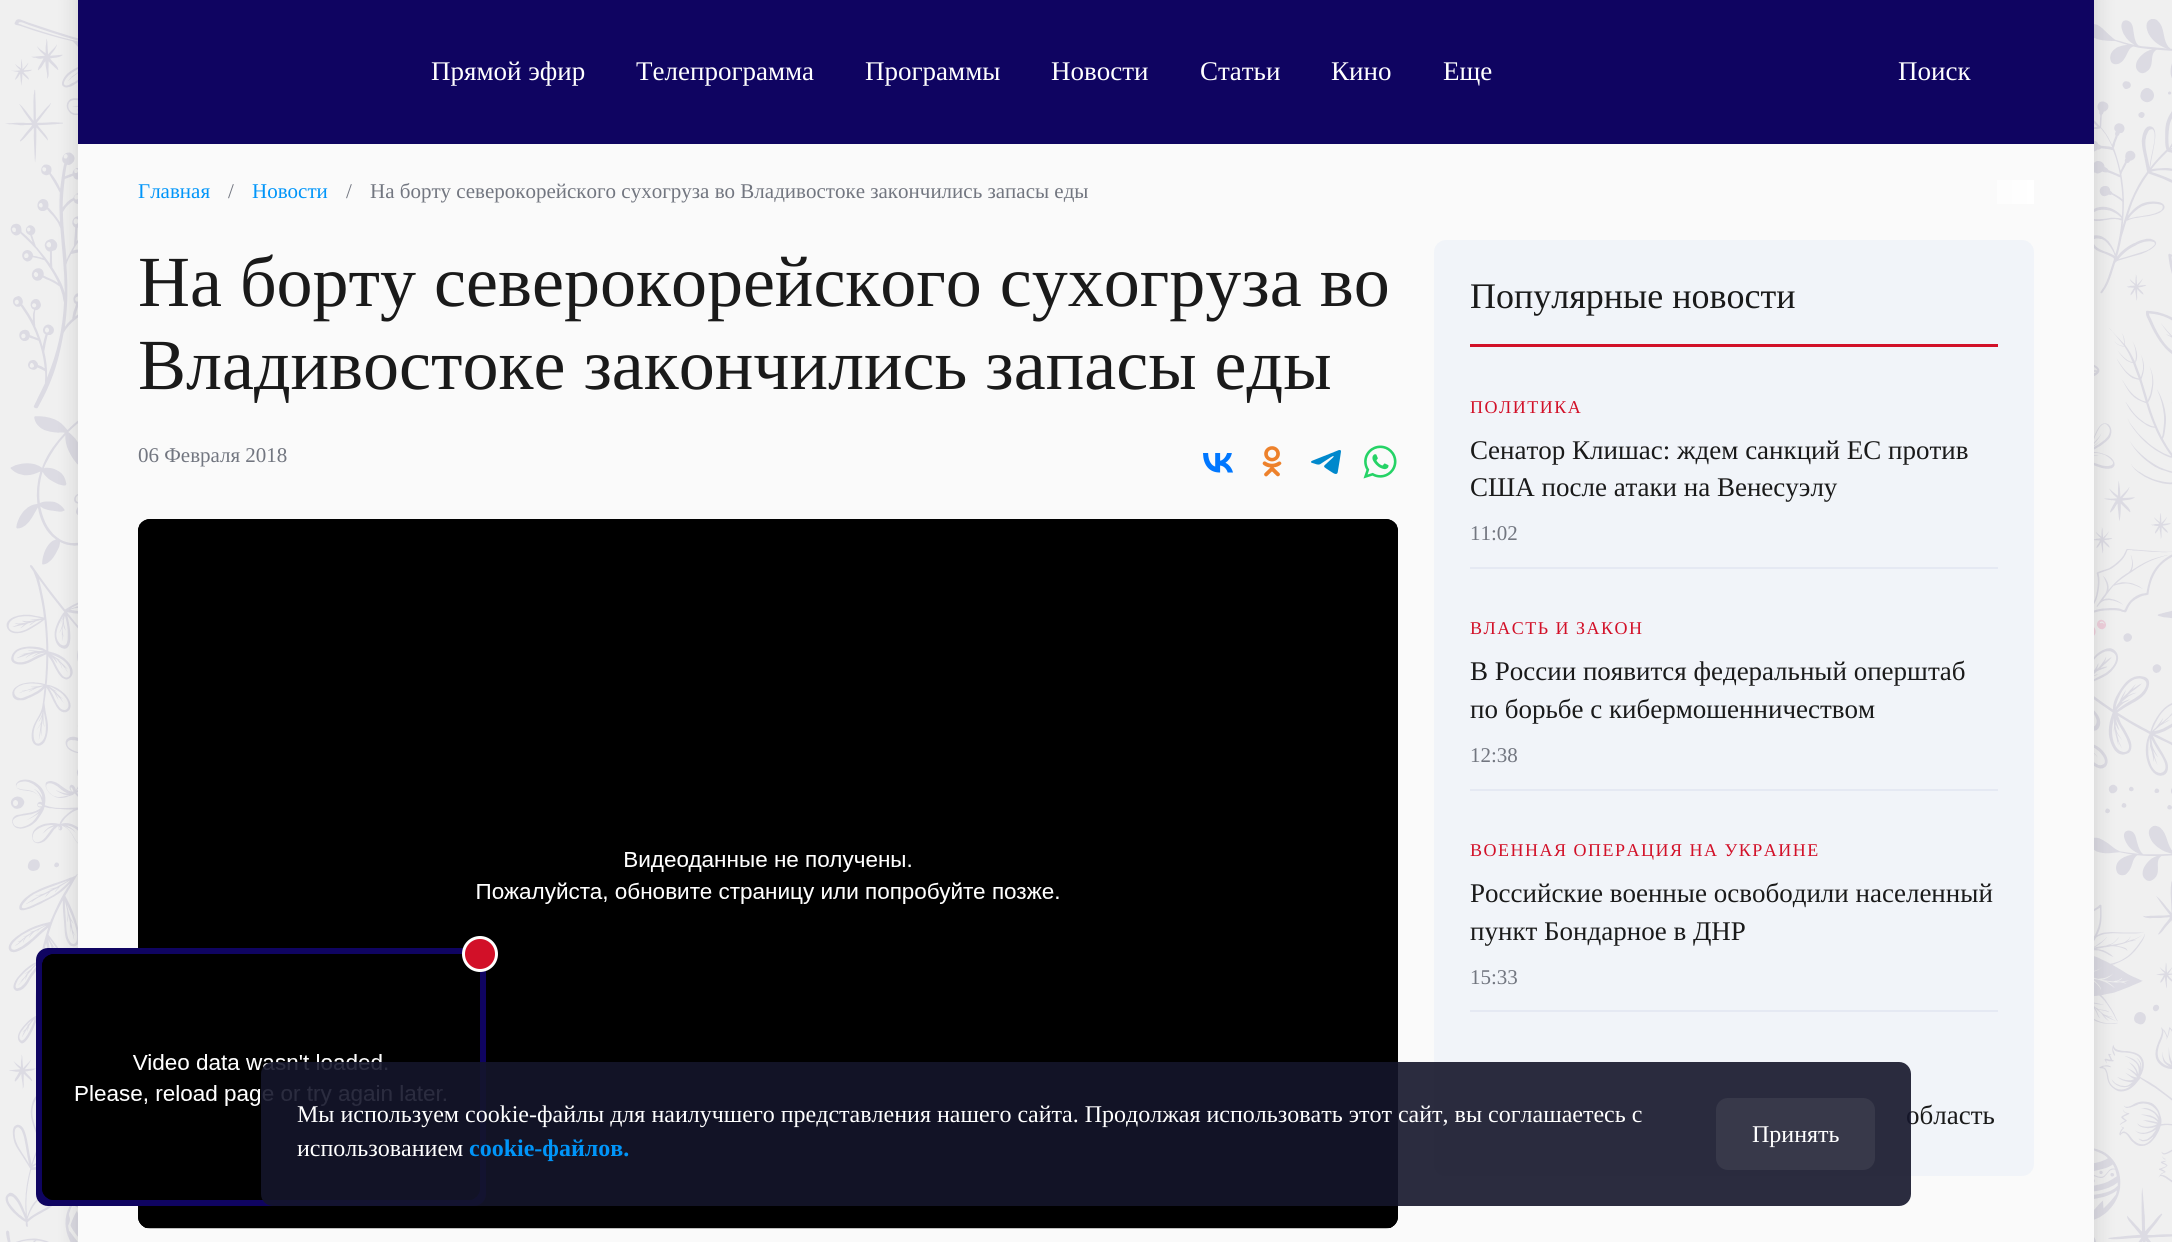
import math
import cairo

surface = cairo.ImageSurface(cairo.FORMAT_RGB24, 2172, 1242)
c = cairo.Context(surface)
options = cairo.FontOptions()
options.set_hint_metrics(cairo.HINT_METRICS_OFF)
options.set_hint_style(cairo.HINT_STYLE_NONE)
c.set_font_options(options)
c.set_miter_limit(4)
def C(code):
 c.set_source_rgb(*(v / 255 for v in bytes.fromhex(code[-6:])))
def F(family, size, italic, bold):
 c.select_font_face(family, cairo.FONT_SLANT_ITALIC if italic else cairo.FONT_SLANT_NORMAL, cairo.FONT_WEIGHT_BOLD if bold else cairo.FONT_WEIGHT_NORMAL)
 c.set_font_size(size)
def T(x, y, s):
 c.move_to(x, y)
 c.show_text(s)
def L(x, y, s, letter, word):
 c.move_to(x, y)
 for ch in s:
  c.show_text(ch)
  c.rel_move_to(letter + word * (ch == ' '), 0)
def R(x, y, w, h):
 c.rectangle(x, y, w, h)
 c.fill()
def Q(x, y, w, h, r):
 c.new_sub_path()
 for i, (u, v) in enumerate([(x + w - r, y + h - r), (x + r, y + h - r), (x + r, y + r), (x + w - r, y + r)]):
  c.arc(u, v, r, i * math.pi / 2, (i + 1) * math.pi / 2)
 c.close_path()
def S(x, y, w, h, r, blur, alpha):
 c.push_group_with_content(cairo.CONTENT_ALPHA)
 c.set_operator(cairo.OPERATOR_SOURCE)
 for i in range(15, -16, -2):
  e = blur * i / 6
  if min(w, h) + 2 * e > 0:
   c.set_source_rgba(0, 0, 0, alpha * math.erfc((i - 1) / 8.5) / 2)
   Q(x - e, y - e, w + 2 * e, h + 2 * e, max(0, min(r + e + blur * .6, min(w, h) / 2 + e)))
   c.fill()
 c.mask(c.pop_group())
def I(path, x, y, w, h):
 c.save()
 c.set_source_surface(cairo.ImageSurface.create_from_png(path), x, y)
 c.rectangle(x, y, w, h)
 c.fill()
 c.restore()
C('f0f0f0')
c.paint()
I('1.png',5,19,2167,1223)
C('000000')
S(74,-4,2025,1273,0,9,.1)
C('fafafa')
R(78,144,2016,1098)
C('0f0461')
R(78,0,2016,144)
F('Liberation Serif',27,0,0)
C('ffffff')
T(431,80,'Прямой эфир')
T(636,80,'Телепрограмма')
T(865,80,'Программы')
T(1051,80,'Новости')
T(1200,80,'Статьи')
T(1331,80,'Кино')
T(1443,80,'Еще')
T(1898,80,'Поиск')
F('Liberation Serif',21,0,0)
C('0095f9')
T(138,198,'Главная')
C('727680')
T(228,198,'/')
C('0095f9')
T(252,198,'Новости')
C('727680')
T(346,198,'/')
T(370,198,'На борту северокорейского сухогруза во Владивостоке закончились запасы еды')
gradient = cairo.LinearGradient(1959,192,2034,192)
gradient.add_color_stop_rgba(0,0.98,0.98,0.98,1)
gradient.add_color_stop_rgba(1,1,1,1,1)
c.set_source(gradient)
R(1997,180,37,24)
F('Liberation Serif',72,0,0)
C('1a1a1a')
T(138,306,'На борту северокорейского сухогруза во')
T(138,389,'Владивостоке закончились запасы еды')
F('Liberation Serif',21,0,0)
C('727680')
T(138,462,'06 Февраля 2018')
I('2.png',1203,453,30,20)
I('3.png',1262,446,20,31)
I('4.png',1311,450,30,24)
I('5.png',1363,445,34,34)
I('6.png',138,519,1260,710)
C('f1f4f9')
Q(1434,240,600,936,12)
c.fill()
C('d21028')
R(1470,344,528,3)
F('Liberation Serif',36,0,0)
C('1a1a1a')
T(1470,308,'Популярные новости')
C('e5e9f3')
R(1470,567,528,2)
F('Liberation Serif',18,0,0)
C('d21028')
L(1470,413,'ПОЛИТИКА',1.5,0)
F('Liberation Serif',27,0,0)
C('1a1a1a')
T(1470,459,'Сенатор Клишас: ждем санкций ЕС против')
T(1470,496,'США после атаки на Венесуэлу')
F('Liberation Serif',21,0,0)
C('727680')
T(1470,540,'11:02')
C('e5e9f3')
R(1470,789,528,2)
F('Liberation Serif',18,0,0)
C('d21028')
L(1470,634,'ВЛАСТЬ И ЗАКОН',1.5,0)
F('Liberation Serif',27,0,0)
C('1a1a1a')
T(1470,680,'В России появится федеральный оперштаб')
T(1470,718,'по борьбе с кибермошенничеством')
F('Liberation Serif',21,0,0)
C('727680')
T(1470,762,'12:38')
C('e5e9f3')
R(1470,1010,528,2)
F('Liberation Serif',18,0,0)
C('d21028')
L(1470,856,'ВОЕННАЯ ОПЕРАЦИЯ НА УКРАИНЕ',1.5,0)
F('Liberation Serif',27,0,0)
C('1a1a1a')
T(1470,902,'Российские военные освободили населенный')
T(1470,940,'пункт Бондарное в ДНР')
F('Liberation Serif',21,0,0)
C('727680')
T(1470,984,'15:33')
F('Liberation Serif',27,0,0)
C('1a1a1a')
T(1906,1124,'область')
C('0f0461')
Q(36,948,450,258,12)
c.fill()
I('7.png',42,954,438,246)
C('d21028')
c.arc(480,954,16.5,0,2 * math.pi)
c.fill_preserve()
C('ffffff')
c.set_line_width(3)
c.stroke()
c.set_source_rgba(0.082,0.086,0.165,0.9)
Q(261,1062,1650,144,12)
c.fill()
F('Liberation Serif',24,0,0)
C('ffffff')
T(297,1122,'Мы используем cookie-файлы для наилучшего представления нашего сайта. Продолжая использовать этот сайт, вы соглашаетесь с')
T(297,1156,'использованием')
F('Liberation Serif',24,0,1)
C('0095f9')
T(469,1156,'cookie-файлов.')
C('38394a')
Q(1716,1098,159,72,12)
c.fill()
F('Liberation Serif',24,0,0)
C('ffffff')
T(1752,1142,'Принять')
surface.write_to_png('o.png')
